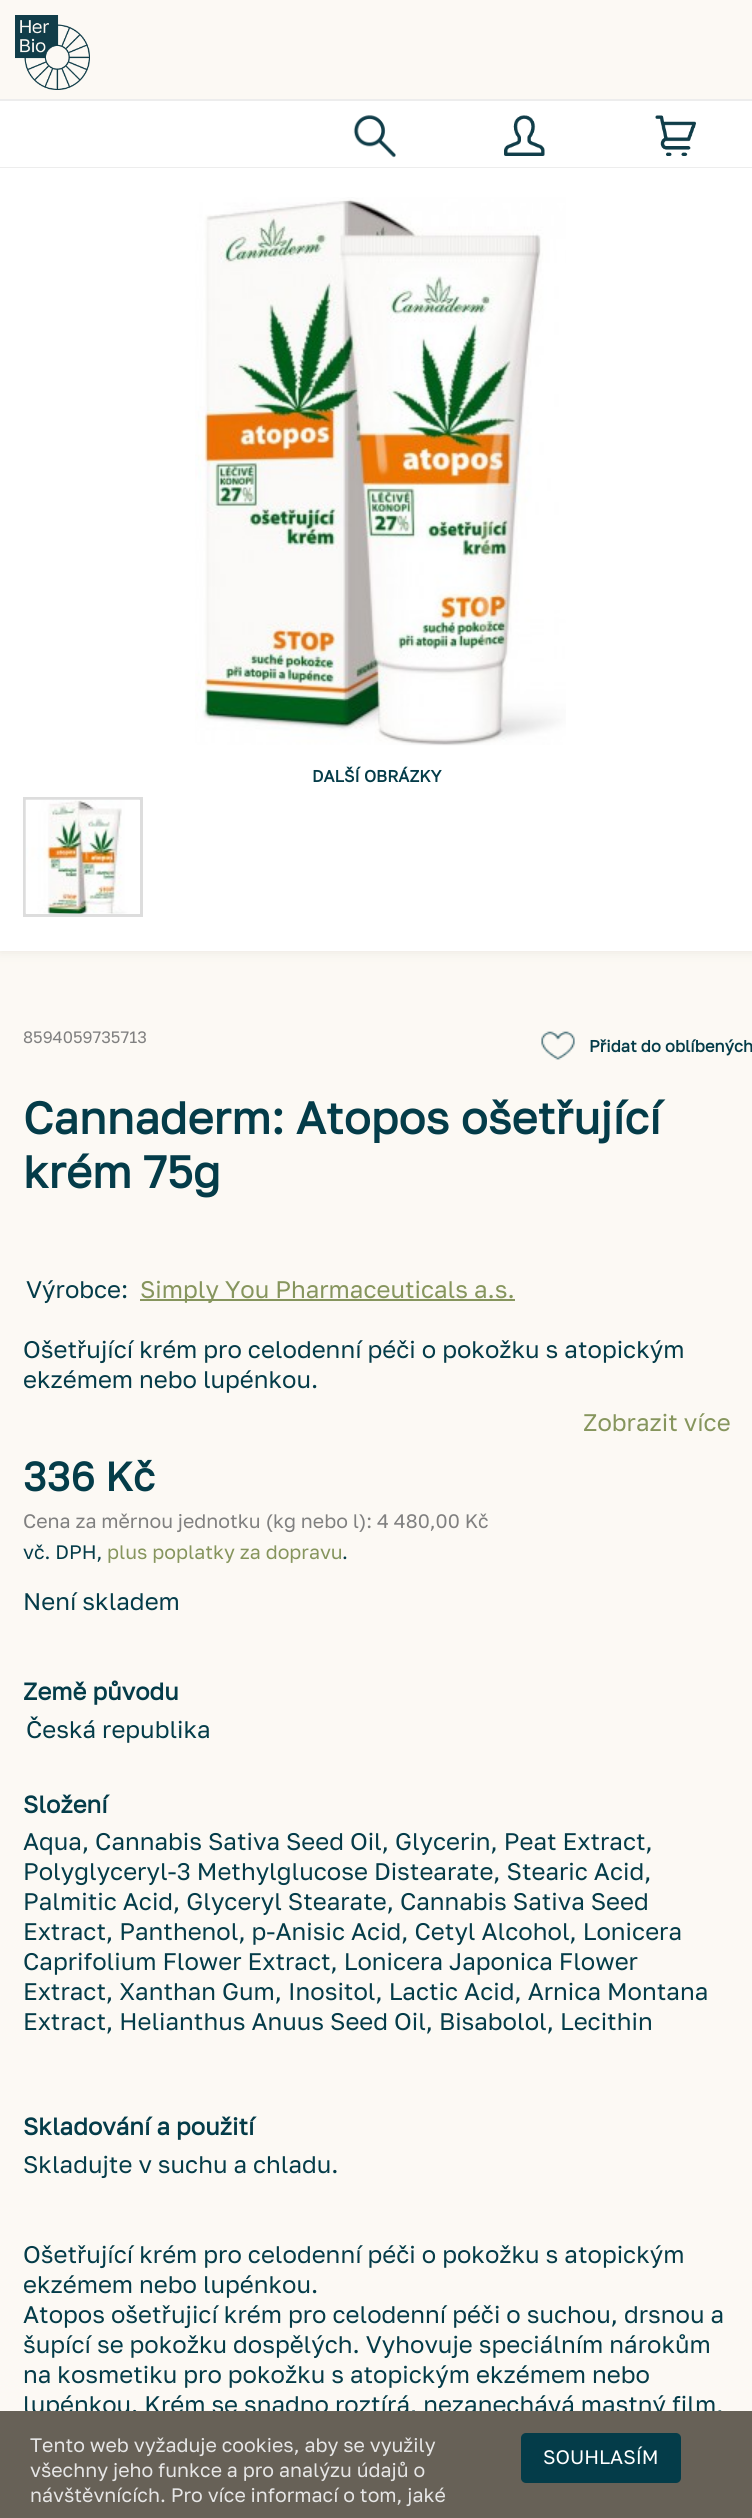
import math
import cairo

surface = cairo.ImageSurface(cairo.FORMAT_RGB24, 752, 2518)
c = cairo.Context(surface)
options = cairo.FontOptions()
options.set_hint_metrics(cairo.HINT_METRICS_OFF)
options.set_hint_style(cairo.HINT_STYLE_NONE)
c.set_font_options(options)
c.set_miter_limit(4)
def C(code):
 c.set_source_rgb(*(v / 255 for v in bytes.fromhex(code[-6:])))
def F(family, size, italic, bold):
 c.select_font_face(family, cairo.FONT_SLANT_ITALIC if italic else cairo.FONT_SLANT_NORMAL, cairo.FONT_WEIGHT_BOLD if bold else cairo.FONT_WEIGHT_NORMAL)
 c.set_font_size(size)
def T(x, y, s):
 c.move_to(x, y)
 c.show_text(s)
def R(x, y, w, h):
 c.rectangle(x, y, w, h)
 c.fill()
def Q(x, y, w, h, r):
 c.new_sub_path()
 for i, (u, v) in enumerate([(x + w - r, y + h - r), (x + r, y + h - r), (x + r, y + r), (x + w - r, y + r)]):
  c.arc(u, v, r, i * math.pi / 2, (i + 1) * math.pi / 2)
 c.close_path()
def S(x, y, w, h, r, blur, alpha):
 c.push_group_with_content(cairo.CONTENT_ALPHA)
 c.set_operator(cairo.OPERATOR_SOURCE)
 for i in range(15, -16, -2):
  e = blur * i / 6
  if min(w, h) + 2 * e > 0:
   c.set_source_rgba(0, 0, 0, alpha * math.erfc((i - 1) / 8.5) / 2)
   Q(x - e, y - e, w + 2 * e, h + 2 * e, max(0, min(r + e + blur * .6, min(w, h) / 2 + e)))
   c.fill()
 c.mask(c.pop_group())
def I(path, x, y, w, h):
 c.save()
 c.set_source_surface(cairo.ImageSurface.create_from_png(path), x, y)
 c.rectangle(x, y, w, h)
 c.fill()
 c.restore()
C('fcf9f4')
c.paint()
I('1.png',15,15,75,75)
C('ffffff')
R(0,101,752,66)
C('ededed')
R(0,99,752,2)
R(0,167,752,1)
I('2.png',353,115,43,43)
I('3.png',504,115,41,41)
I('4.png',655,115,41,41)
c.save()
c.rectangle(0,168,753,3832)
c.clip()
C('e9e6df')
S(0,168,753,783,0,6,1)
c.restore()
C('ffffff')
R(0,168,752,783)
I('5.png',195,197,371,549)
F('Golos Text',16.5,0,1)
C('043c49')
T(312,782,'DALŠÍ OBRÁZKY')
c.rectangle(24.5,798.5,117,117)
C('dddddd')
c.set_line_width(3)
c.stroke()
I('6.png',25,799,115,115)
F('Golos Text',16.5,0,0)
C('808080')
T(23,1043,'8594059735713')
I('7.png',541,1031,34,29)
F('Golos Text',16.5,0,1)
C('043c49')
T(589,1052,'Přidat do oblíbených')
F('Golos Text',45,0,1)
T(23,1134,'Cannaderm: Atopos ošetřující')
T(23,1188,'krém 75g')
F('Golos Text',24,0,0)
T(26,1298,'Výrobce:')
C('86955d')
R(140,1299,375,2)
T(140,1298,'Simply You Pharmaceuticals a.s.')
C('043c49')
T(23,1358,'Ošetřující krém pro celodenní péči o pokožku s atopickým')
T(23,1388,'ekzémem nebo lupénkou.')
C('86955d')
T(583,1431,'Zobrazit více')
F('Golos Text',40.5,0,1)
C('043c49')
T(23,1491,'336 Kč')
F('Golos Text',19.5,0,0)
C('808080')
T(23,1528,'Cena za měrnou jednotku (kg nebo l): 4 480,00 Kč')
C('043c49')
T(23,1559,'vč. DPH,')
C('86955d')
T(107,1559,'plus poplatky za dopravu')
C('043c49')
T(342,1559,'.')
F('Golos Text',24,0,0)
T(23,1610,'Není skladem')
F('Golos Text',24,0,1)
T(23,1700,'Země původu')
F('Golos Text',24,0,0)
T(26,1738,'Česká republika')
F('Golos Text',24,0,1)
T(23,1813,'Složení')
F('Golos Text',24,0,0)
T(23,1850,'Aqua, Cannabis Sativa Seed Oil, Glycerin, Peat Extract,')
T(23,1880,'Polyglyceryl-3 Methylglucose Distearate, Stearic Acid,')
T(23,1910,'Palmitic Acid, Glyceryl Stearate, Cannabis Sativa Seed')
T(23,1940,'Extract, Panthenol, p-Anisic Acid, Cetyl Alcohol, Lonicera')
T(23,1970,'Caprifolium Flower Extract, Lonicera Japonica Flower')
T(23,2000,'Extract, Xanthan Gum, Inositol, Lactic Acid, Arnica Montana')
T(23,2030,'Extract, Helianthus Anuus Seed Oil, Bisabolol, Lecithin')
F('Golos Text',24,0,1)
T(23,2135,'Skladování a použití')
F('Golos Text',24,0,0)
T(23,2173,'Skladujte v suchu a chladu.')
T(23,2263,'Ošetřující krém pro celodenní péči o pokožku s atopickým')
T(23,2293,'ekzémem nebo lupénkou.')
T(23,2323,'Atopos ošetřujicí krém pro celodenní péči o suchou, drsnou a')
T(23,2353,'šupící se pokožku dospělých. Vyhovuje speciálním nárokům')
T(23,2383,'na kosmetiku pro pokožku s atopickým ekzémem nebo')
T(23,2413,'lupénkou. Krém se snadno roztírá, nezanechává mastný film,')
C('676157')
R(0,2411,752,107)
F('Golos Text',19.5,0,0)
C('e6e6e6')
T(30,2452,'Tento web vyžaduje cookies, aby se využily')
T(30,2477,'všechny jeho funkce a pro analýzu údajů o')
T(30,2502,'návštěvnících. Pro více informací o tom, jaké')
C('043c49')
Q(521,2433,160,50,5)
c.fill()
C('ffffff')
T(543,2464,'SOUHLASÍM')
surface.write_to_png('o.png')
